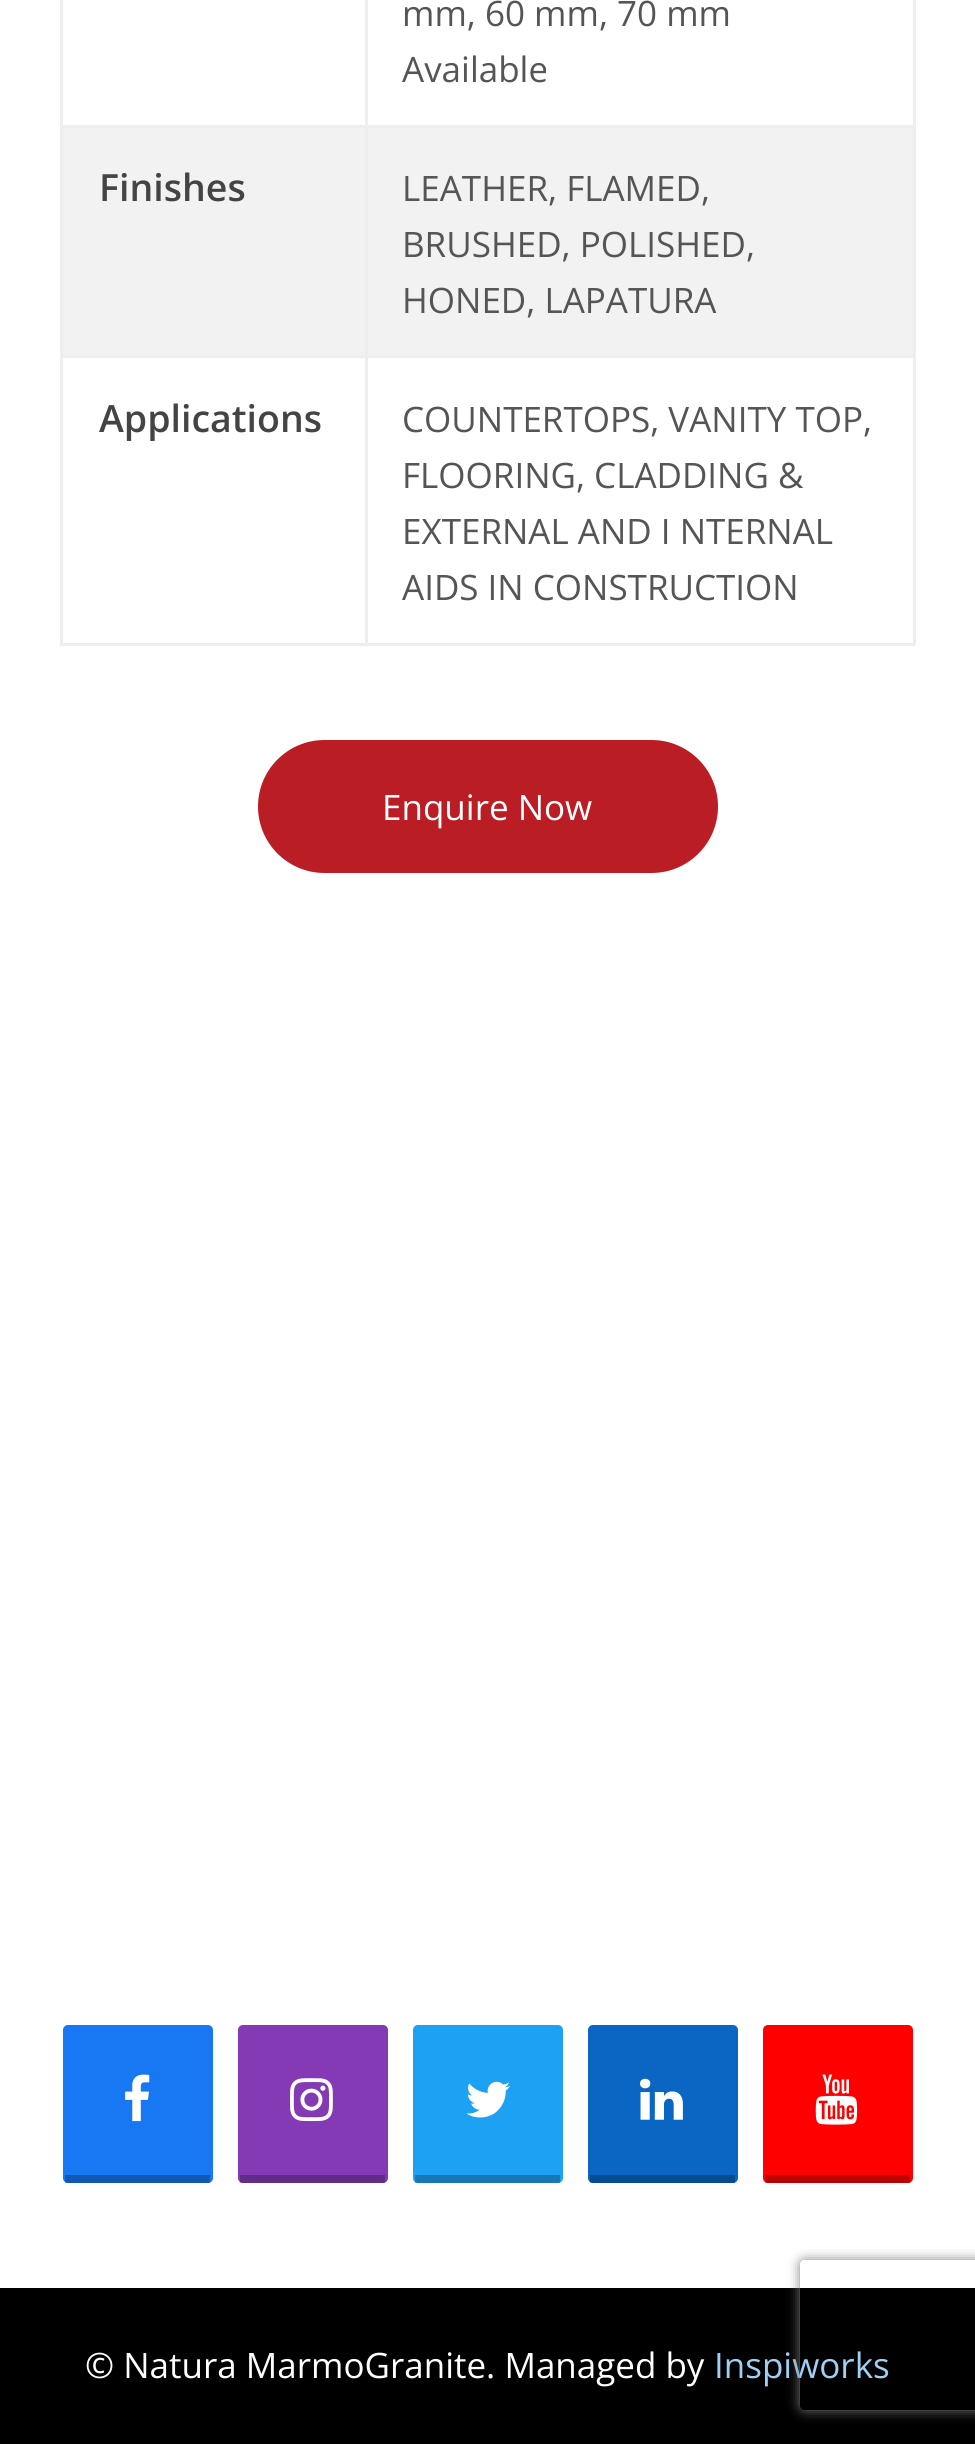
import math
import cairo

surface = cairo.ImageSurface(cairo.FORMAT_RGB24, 975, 2444)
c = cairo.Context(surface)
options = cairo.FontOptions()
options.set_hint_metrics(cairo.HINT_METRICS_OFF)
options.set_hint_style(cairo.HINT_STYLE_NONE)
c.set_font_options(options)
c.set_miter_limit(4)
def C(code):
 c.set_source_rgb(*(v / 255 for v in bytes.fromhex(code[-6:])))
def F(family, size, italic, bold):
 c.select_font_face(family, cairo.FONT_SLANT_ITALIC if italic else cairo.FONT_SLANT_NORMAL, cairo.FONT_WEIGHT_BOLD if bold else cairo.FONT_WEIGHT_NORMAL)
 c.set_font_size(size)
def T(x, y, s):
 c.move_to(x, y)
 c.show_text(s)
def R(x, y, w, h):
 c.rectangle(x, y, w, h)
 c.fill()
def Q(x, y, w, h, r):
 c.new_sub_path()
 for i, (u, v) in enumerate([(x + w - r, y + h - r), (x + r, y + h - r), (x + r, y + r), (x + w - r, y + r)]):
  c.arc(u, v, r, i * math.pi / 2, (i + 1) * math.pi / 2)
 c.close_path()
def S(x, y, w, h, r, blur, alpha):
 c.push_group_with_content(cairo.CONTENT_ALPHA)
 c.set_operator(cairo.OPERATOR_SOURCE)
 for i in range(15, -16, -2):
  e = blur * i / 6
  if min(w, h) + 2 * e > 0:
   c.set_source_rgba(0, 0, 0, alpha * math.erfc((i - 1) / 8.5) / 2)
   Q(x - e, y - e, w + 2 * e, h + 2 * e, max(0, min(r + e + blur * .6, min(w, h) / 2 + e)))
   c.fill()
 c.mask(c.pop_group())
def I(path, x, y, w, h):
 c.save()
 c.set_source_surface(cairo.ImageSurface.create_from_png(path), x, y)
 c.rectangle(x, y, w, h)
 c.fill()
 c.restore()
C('ffffff')
c.paint()
C('eeeeee')
R(365,125,550,3)
C('f2f2f2')
R(63,128,850,227)
C('eeeeee')
R(365,355,550,3)
R(913,355,3,290)
R(365,643,550,3)
R(365,355,3,290)
R(60,355,308,3)
R(365,125,3,233)
R(60,125,308,3)
R(365,0,3,128)
F('Open Sans',35,0,0)
C('555555')
T(402,26,'mm, 60 mm, 70 mm')
T(402,82,'Available')
C('eeeeee')
R(60,643,308,3)
R(60,355,3,290)
R(60,0,3,358)
F('Open Sans SemiBold',37.5,0,0)
C('444444')
T(99,201,'Finishes')
C('eeeeee')
R(913,0,3,358)
F('Open Sans',35,0,0)
C('555555')
T(402,201,'LEATHER, FLAMED,')
T(402,257,'BRUSHED, POLISHED,')
T(402,313,'HONED, LAPATURA')
F('Open Sans SemiBold',37.5,0,0)
C('444444')
T(99,432,'Applications')
F('Open Sans',35,0,0)
C('555555')
T(402,432,'COUNTERTOPS, VANITY TOP,')
T(402,488,'FLOORING, CLADDING &')
T(402,544,'EXTERNAL AND I NTERNAL')
T(402,600,'AIDS IN CONSTRUCTION')
C('ba1d23')
Q(258,740,460,133,66.5)
c.fill()
C('ffffff')
T(382,820,'Enquire Now')
C('1877f2')
Q(63,2025,150,158,5)
c.fill()
c.set_source_rgba(0,0,0,0.25)
R(65,2175,145,8)
I('1.png',125,2074,25,48)
C('833ab4')
Q(238,2025,150,158,5)
c.fill()
c.set_source_rgba(0,0,0,0.25)
R(240,2175,145,8)
I('2.png',290,2078,43,44)
C('1da1f2')
Q(413,2025,150,158,5)
c.fill()
c.set_source_rgba(0,0,0,0.25)
R(415,2175,145,8)
I('3.png',466,2081,44,37)
C('0a66c2')
Q(588,2025,150,158,5)
c.fill()
c.set_source_rgba(0,0,0,0.25)
R(590,2175,145,8)
I('4.png',640,2078,43,42)
C('ff0000')
Q(763,2025,150,158,5)
c.fill()
c.set_source_rgba(0,0,0,0.25)
R(765,2175,145,8)
I('5.png',815,2074,43,51)
C('000000')
R(0,2288,975,156)
C('ffffff')
T(85,2378,'© Natura MarmoGranite. Managed by')
C('9ed0f5')
T(714,2378,'Inspiworks')
c.save()
c.set_fill_rule(cairo.FILL_RULE_EVEN_ODD)
c.new_path()
c.move_to(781,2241)
c.line_to(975,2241)
c.line_to(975,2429)
c.line_to(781,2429)
c.close_path()
c.move_to(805,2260)
c.line_to(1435,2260)
c.curve_to(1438,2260,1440,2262,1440,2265)
c.line_to(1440,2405)
c.curve_to(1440,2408,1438,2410,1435,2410)
c.line_to(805,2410)
c.curve_to(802,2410,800,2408,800,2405)
c.line_to(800,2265)
c.curve_to(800,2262,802,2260,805,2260)
c.close_path()
c.clip()
C('808080')
S(800,2260,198,150,5,6,1)
c.restore()
surface.write_to_png('o.png')
